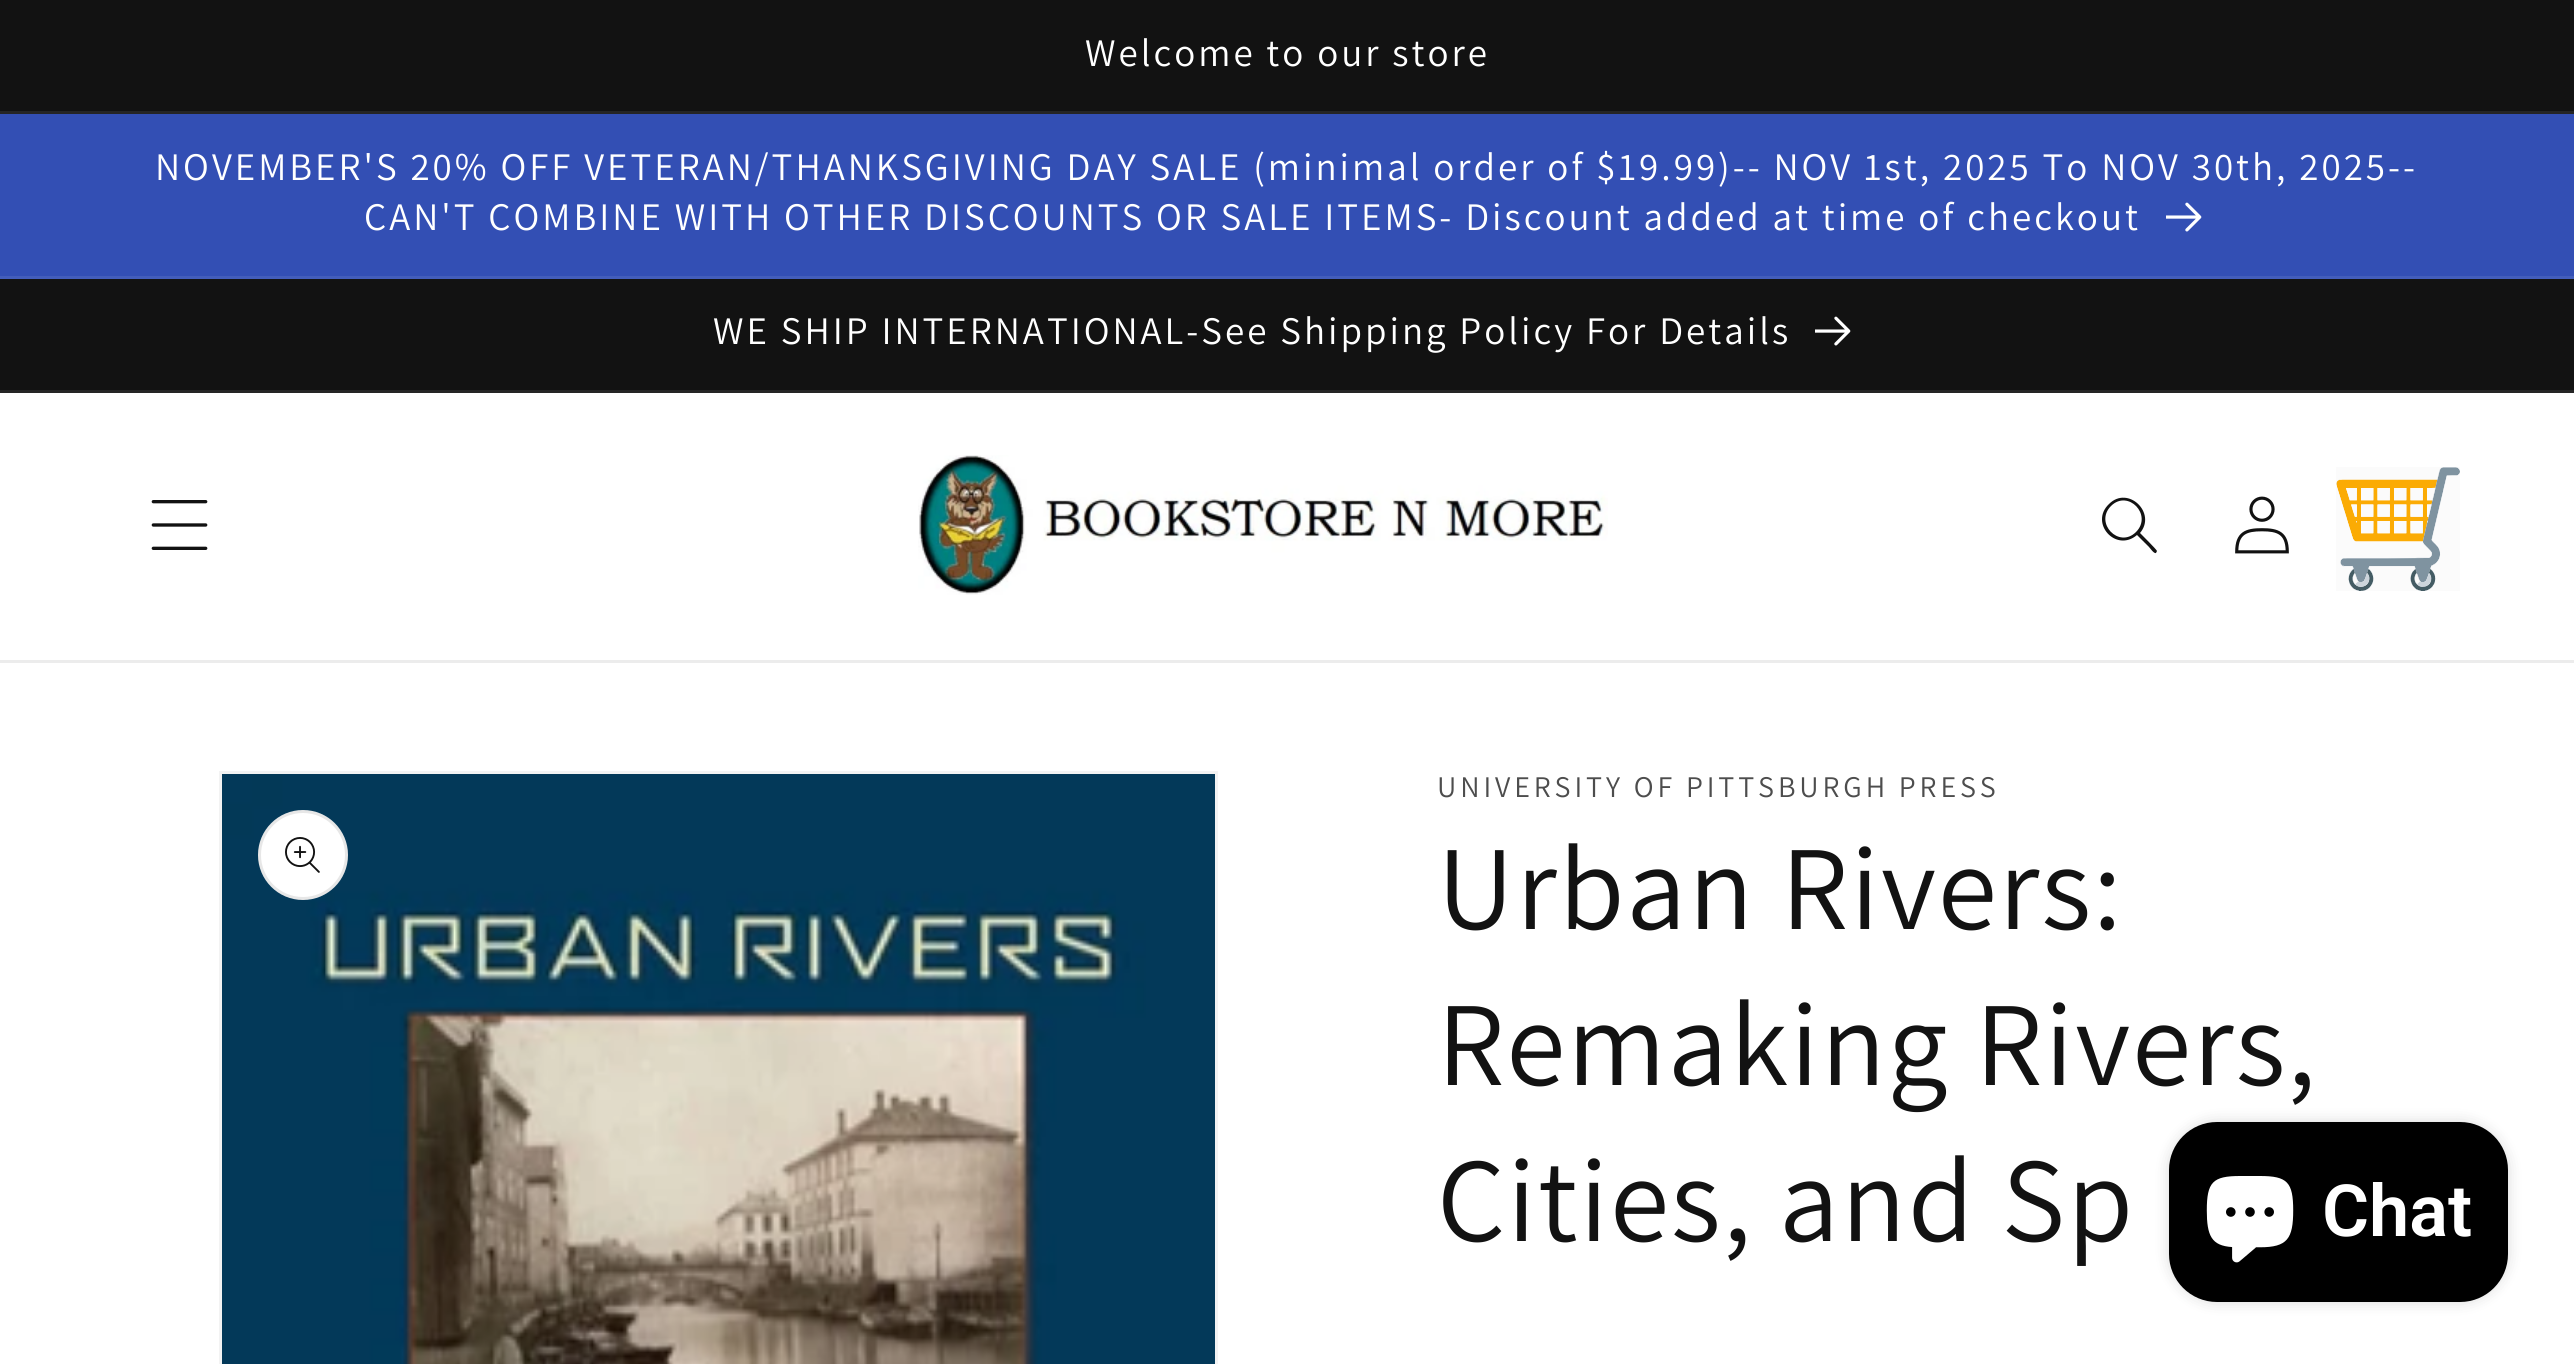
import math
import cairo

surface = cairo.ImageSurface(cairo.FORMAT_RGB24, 2574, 1364)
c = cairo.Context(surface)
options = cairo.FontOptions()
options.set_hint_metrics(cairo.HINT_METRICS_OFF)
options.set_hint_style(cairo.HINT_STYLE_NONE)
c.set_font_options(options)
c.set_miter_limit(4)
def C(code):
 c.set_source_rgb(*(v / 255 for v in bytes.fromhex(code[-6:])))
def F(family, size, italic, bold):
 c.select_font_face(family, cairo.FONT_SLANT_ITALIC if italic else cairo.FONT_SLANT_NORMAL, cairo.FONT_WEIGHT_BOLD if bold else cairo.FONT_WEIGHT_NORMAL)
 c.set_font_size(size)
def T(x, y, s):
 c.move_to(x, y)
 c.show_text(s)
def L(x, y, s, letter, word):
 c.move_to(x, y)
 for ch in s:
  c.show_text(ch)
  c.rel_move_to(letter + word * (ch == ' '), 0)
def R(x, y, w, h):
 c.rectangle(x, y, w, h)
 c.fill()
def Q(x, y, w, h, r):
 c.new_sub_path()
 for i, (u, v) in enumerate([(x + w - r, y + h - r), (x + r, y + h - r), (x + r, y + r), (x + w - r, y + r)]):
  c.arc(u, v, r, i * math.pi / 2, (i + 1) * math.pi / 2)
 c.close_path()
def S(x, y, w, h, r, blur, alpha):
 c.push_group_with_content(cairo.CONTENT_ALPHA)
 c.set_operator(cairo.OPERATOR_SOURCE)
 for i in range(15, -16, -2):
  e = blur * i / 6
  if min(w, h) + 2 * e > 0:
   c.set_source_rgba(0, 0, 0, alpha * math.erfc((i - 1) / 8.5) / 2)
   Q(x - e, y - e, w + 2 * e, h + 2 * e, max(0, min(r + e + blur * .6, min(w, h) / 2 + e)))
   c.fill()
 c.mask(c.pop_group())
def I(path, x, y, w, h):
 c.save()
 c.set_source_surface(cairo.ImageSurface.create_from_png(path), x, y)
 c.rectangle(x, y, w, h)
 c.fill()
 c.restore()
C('ffffff')
c.paint()
C('121212')
R(0,0,2574,111)
C('252525')
R(0,111,2574,3)
F('Assistant',39,0,0)
C('ffffff')
L(1085,66,'Welcome to our store',3,0)
C('334fb4')
R(0,114,2574,162)
C('435dba')
R(0,276,2574,3)
C('ffffff')
L(155,180,'NOVEMBER\'S 20% OFF VETERAN/THANKSGIVING DAY SALE (minimal order of $19.99)-- NOV 1st, 2025 To NOV 30th, 2025--',3,0)
L(364,230,'CAN\'T COMBINE WITH OTHER DISCOUNTS OR SALE ITEMS- Discount added at time of checkout',3,0)
I('1.png',2166,202,36,30)
C('121212')
R(0,279,2574,111)
C('252525')
R(0,390,2574,3)
C('ffffff')
L(713,344,'WE SHIP INTERNATIONAL-See Shipping Policy For Details',3,0)
I('2.png',1815,316,36,30)
C('ececec')
R(0,660,2574,3)
I('3.png',151,500,57,50)
I('4.png',918,455,690,140)
C('121212')
c.set_fill_rule(cairo.FILL_RULE_EVEN_ODD)
c.new_path()
c.move_to(2136,532)
c.curve_to(2119,549,2094,523,2111,506)
c.curve_to(2128,489,2153,515,2136,532)
c.close_path()
c.move_to(2137,535)
c.curve_to(2116,553,2089,523,2109,504)
c.curve_to(2128,485,2157,513,2140,533)
c.curve_to(2142,535,2157,550,2157,551)
c.line_to(2156,553)
c.curve_to(2154,554,2150,548,2149,547)
c.close_path()
c.fill()
I('5.png',2235,496,54,58)
I('6.png',2336,467,124,124)
c.rectangle(220.5,772.5,996,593)
C('f3f3f3')
c.set_line_width(3)
c.stroke()
I('7.png',222,774,993,590)
C('ffffff')
c.arc(303,855,45,0,2 * math.pi)
c.fill()
c.arc(303,855,43.5,0,2 * math.pi)
c.set_source_rgba(0.071,0.071,0.071,0.1)
c.stroke()
I('8.png',285,837,35,36)
F('Assistant',30,0,0)
C('4d4d4d')
L(1437,797,'UNIVERSITY OF PITTSBURGH PRESS',3.9,0)
F('Assistant',120,0,0)
C('121212')
L(1437,929,'Urban Rivers:',1.75,0)
L(1437,1085,'Remaking Rivers,',1.75,0)
L(1437,1241,'Cities, and Sp',1.75,0)
C('000000')
S(2169,1122,339,180,48,7.5,.15)
C('000000')
Q(2169,1122,339,180,48)
c.fill()
I('9.png',2206,1176,88,87)
F('Roboto SemiBold',72,0,0)
C('ffffff')
T(2322,1236,'Chat')
surface.write_to_png('o.png')
